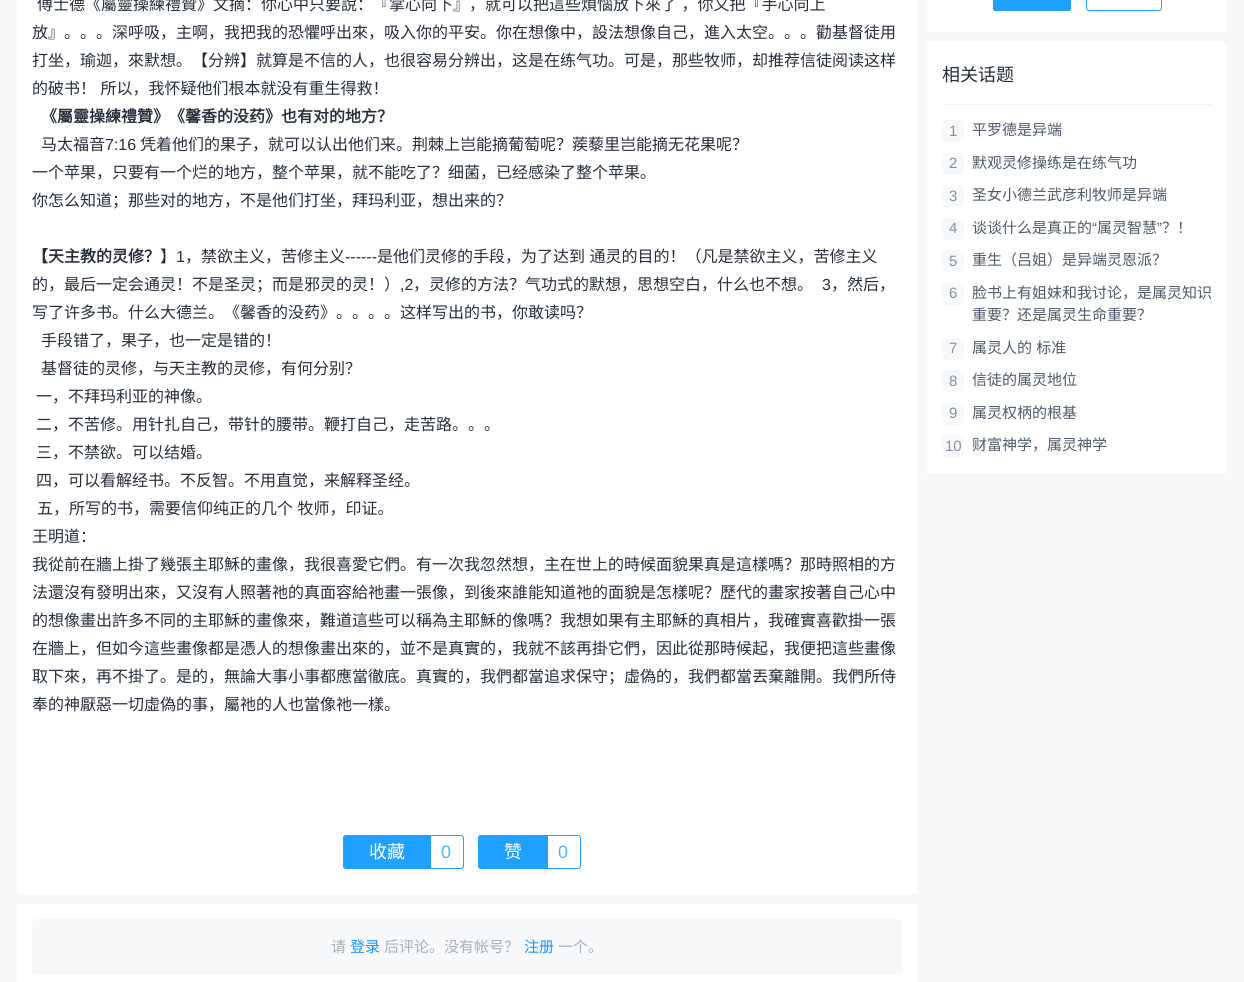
import math
import cairo

surface = cairo.ImageSurface(cairo.FORMAT_RGB24, 1244, 982)
c = cairo.Context(surface)
options = cairo.FontOptions()
options.set_hint_metrics(cairo.HINT_METRICS_OFF)
options.set_hint_style(cairo.HINT_STYLE_NONE)
c.set_font_options(options)
c.set_miter_limit(4)
def C(code):
 c.set_source_rgb(*(v / 255 for v in bytes.fromhex(code[-6:])))
def F(family, size, italic, bold):
 c.select_font_face(family, cairo.FONT_SLANT_ITALIC if italic else cairo.FONT_SLANT_NORMAL, cairo.FONT_WEIGHT_BOLD if bold else cairo.FONT_WEIGHT_NORMAL)
 c.set_font_size(size)
def T(x, y, s):
 c.move_to(x, y)
 c.show_text(s)
def L(x, y, s, letter, word):
 c.move_to(x, y)
 for ch in s:
  c.show_text(ch)
  c.rel_move_to(letter + word * (ch == ' '), 0)
def R(x, y, w, h):
 c.rectangle(x, y, w, h)
 c.fill()
def Q(x, y, w, h, r):
 c.new_sub_path()
 for i, (u, v) in enumerate([(x + w - r, y + h - r), (x + r, y + h - r), (x + r, y + r), (x + w - r, y + r)]):
  c.arc(u, v, r, i * math.pi / 2, (i + 1) * math.pi / 2)
 c.close_path()
C('f7f8fa')
c.paint()
C('ffffff')
R(17,0,900,894)
F('Noto Sans CJK SC',16,0,0)
C('272e3b')
L(37,10,'傅士德《屬靈操練禮贊》文摘：你心中只要說：『掌心向下』，就可以把這些煩惱放下來了 ，你又把『手心向上',0,1)
T(32,38,'放』。。。深呼吸，主啊，我把我的恐懼呼出來，吸入你的平安。你在想像中，設法想像自己，進入太空。。。勸基督徒用')
T(32,66,'打坐，瑜迦，來默想。【分辨】就算是不信的人，也很容易分辨出，这是在练气功。可是，那些牧师，却推荐信徒阅读这样')
L(32,94,'的破书！ 所以，我怀疑他们根本就没有重生得救！',0,1)
F('Noto Sans CJK SC',16,0,1)
T(41,122,'《屬靈操練禮贊》《馨香的没药》也有对的地方？')
F('Noto Sans CJK SC',16,0,0)
T(41,150,'马太福音')
F('Liberation Sans',16,0,0)
T(105,150,'7:16')
F('Noto Sans CJK SC',16,0,0)
T(140,150,'凭着他们的果子，就可以认出他们来。荆棘上岂能摘葡萄呢？蒺藜里岂能摘无花果呢？')
T(32,178,'一个苹果，只要有一个烂的地方，整个苹果，就不能吃了？细菌，已经感染了整个苹果。')
T(32,206,'你怎么知道；那些对的地方，不是他们打坐，拜玛利亚，想出来的？')
F('Noto Sans CJK SC',16,0,1)
T(32,262,'【天主教的灵修？')
F('Noto Sans CJK SC',16,0,0)
T(160,262,'】')
F('Liberation Sans',16,0,0)
T(176,262,'1')
F('Noto Sans CJK SC',16,0,0)
T(185,262,'，禁欲主义，苦修主义')
F('Liberation Sans',16,0,0)
T(345,262,'------')
F('Noto Sans CJK SC',16,0,0)
L(377,262,'是他们灵修的手段，为了达到 通灵的目的！（凡是禁欲主义，苦修主义',0,1)
T(32,290,'的，最后一定会通灵！不是圣灵；而是邪灵的灵！）')
F('Liberation Sans',16,0,0)
T(400,290,',2')
F('Noto Sans CJK SC',16,0,0)
T(413,290,'，灵修的方法？气功式的默想，思想空白，什么也不想。')
F('Liberation Sans',16,0,0)
T(822,290,'3')
F('Noto Sans CJK SC',16,0,0)
T(831,290,'，然后，')
T(32,318,'写了许多书。什么大德兰。《馨香的没药》。。。。这样写出的书，你敢读吗？')
T(41,346,'手段错了，果子，也一定是错的！')
T(41,374,'基督徒的灵修，与天主教的灵修，有何分别？')
T(36,402,'一，不拜玛利亚的神像。')
T(36,430,'二，不苦修。用针扎自己，带针的腰带。鞭打自己，走苦路。。。')
T(36,458,'三，不禁欲。可以结婚。')
T(36,486,'四，可以看解经书。不反智。不用直觉，来解释圣经。')
L(37,514,'五，所写的书，需要信仰纯正的几个 牧师，印证。',0,1)
T(32,542,'王明道：')
T(32,570,'我從前在牆上掛了幾張主耶穌的畫像，我很喜愛它們。有一次我忽然想，主在世上的時候面貌果真是這樣嗎？那時照相的方')
T(32,598,'法還沒有發明出來，又沒有人照著祂的真面容給祂畫一張像，到後來誰能知道祂的面貌是怎樣呢？歷代的畫家按著自己心中')
T(32,626,'的想像畫出許多不同的主耶穌的畫像來，難道這些可以稱為主耶穌的像嗎？我想如果有主耶穌的真相片，我確實喜歡掛一張')
T(32,654,'在牆上，但如今這些畫像都是憑人的想像畫出來的，並不是真實的，我就不該再掛它們，因此從那時候起，我便把這些畫像')
T(32,682,'取下來，再不掛了。是的，無論大事小事都應當徹底。真實的，我們都當追求保守；虛偽的，我們都當丟棄離開。我們所侍')
T(32,710,'奉的神厭惡一切虛偽的事，屬祂的人也當像祂一樣。')
C('20a0ff')
c.new_path()
c.move_to(346,835.5)
c.line_to(430.5,835.5)
c.line_to(430.5,868.5)
c.line_to(346,868.5)
c.curve_to(344.5,868.5,343.5,867.5,343.5,866)
c.line_to(343.5,838)
c.curve_to(343.5,836.5,344.5,835.5,346,835.5)
c.close_path()
c.fill_preserve()
c.set_line_width(1)
c.stroke()
F('Noto Sans CJK SC',18,0,0)
C('ffffff')
T(369,858,'收藏')
C('20a0ff')
c.set_fill_rule(cairo.FILL_RULE_EVEN_ODD)
c.new_path()
c.move_to(429,835)
c.line_to(461,835)
c.curve_to(462.5,835,464,836.5,464,838)
c.line_to(464,866)
c.curve_to(464,867.5,462.5,869,461,869)
c.line_to(429,869)
c.close_path()
c.move_to(429,836)
c.line_to(461,836)
c.curve_to(462,836,463,837,463,838)
c.line_to(463,866)
c.curve_to(463,867,462,868,461,868)
c.line_to(429,868)
c.close_path()
c.fill()
F('Liberation Sans',18,0,0)
C('45b6f7')
T(441,858,'0')
C('20a0ff')
c.new_path()
c.move_to(481,835.5)
c.line_to(547.5,835.5)
c.line_to(547.5,868.5)
c.line_to(481,868.5)
c.curve_to(479.5,868.5,478.5,867.5,478.5,866)
c.line_to(478.5,838)
c.curve_to(478.5,836.5,479.5,835.5,481,835.5)
c.close_path()
c.fill_preserve()
c.stroke()
F('Noto Sans CJK SC',18,0,0)
C('ffffff')
T(504,858,'赞')
C('20a0ff')
c.new_path()
c.move_to(546,835)
c.line_to(578,835)
c.curve_to(579.5,835,581,836.5,581,838)
c.line_to(581,866)
c.curve_to(581,867.5,579.5,869,578,869)
c.line_to(546,869)
c.close_path()
c.move_to(546,836)
c.line_to(578,836)
c.curve_to(579,836,580,837,580,838)
c.line_to(580,866)
c.curve_to(580,867,579,868,578,868)
c.line_to(546,868)
c.close_path()
c.fill()
F('Liberation Sans',18,0,0)
C('45b6f7')
T(558,858,'0')
C('ffffff')
R(17,904,900,78)
C('f7f8fa')
Q(32,919,870,56,4)
c.fill()
F('Noto Sans CJK SC',15,0,0)
C('a9aeb8')
T(331,952,'请')
C('1890ff')
T(350,952,'登录')
C('a9aeb8')
T(384,952,'后评论。没有帐号？')
C('1890ff')
T(524,952,'注册')
C('a9aeb8')
T(558,952,'一个。')
C('ffffff')
R(927,0,300,32)
C('20a0ff')
Q(992.5,-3.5,79,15,2.5)
c.fill_preserve()
C('ffffff')
c.stroke()
Q(1086.5,-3.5,75,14,2.5)
C('20a0ff')
c.stroke()
C('ffffff')
R(927,42,300,431)
C('f2f3f5')
R(942,104,270,1)
F('Noto Sans CJK SC',18,0,0)
C('272e3b')
T(942,81,'相关话题')
C('f7f8fa')
Q(942,120,22,22,4)
c.fill()
F('Liberation Sans',15,0,0)
C('86909c')
T(949,136,'1')
F('Noto Sans CJK SC',15,0,0)
C('4e5969')
T(972,135,'平罗德是异端')
C('f7f8fa')
Q(942,153,22,22,4)
c.fill()
F('Liberation Sans',15,0,0)
C('86909c')
T(949,168,'2')
F('Noto Sans CJK SC',15,0,0)
C('4e5969')
T(972,168,'默观灵修操练是在练气功')
C('f7f8fa')
Q(942,185,22,22,4)
c.fill()
F('Liberation Sans',15,0,0)
C('86909c')
T(949,201,'3')
F('Noto Sans CJK SC',15,0,0)
C('4e5969')
T(972,200,'圣女小德兰武彦利牧师是异端')
C('f7f8fa')
Q(942,218,22,22,4)
c.fill()
F('Liberation Sans',15,0,0)
C('86909c')
T(949,233,'4')
F('Noto Sans CJK SC',15,0,0)
C('4e5969')
T(972,233,'谈谈什么是真正的')
F('Liberation Sans',15,0,0)
T(1092,233,'“')
F('Noto Sans CJK SC',15,0,0)
T(1097,233,'属灵智慧')
F('Liberation Sans',15,0,0)
T(1157,233,'”')
F('Noto Sans CJK SC',15,0,0)
T(1162,233,'？！')
C('f7f8fa')
Q(942,250,22,22,4)
c.fill()
F('Liberation Sans',15,0,0)
C('86909c')
T(949,266,'5')
F('Noto Sans CJK SC',15,0,0)
C('4e5969')
T(972,265,'重生（吕姐）是异端灵恩派？')
C('f7f8fa')
Q(942,283,22,22,4)
c.fill()
F('Liberation Sans',15,0,0)
C('86909c')
T(949,298,'6')
F('Noto Sans CJK SC',15,0,0)
C('4e5969')
T(972,298,'脸书上有姐妹和我讨论，是属灵知识')
T(972,320,'重要？还是属灵生命重要？')
C('f7f8fa')
Q(942,338,22,22,4)
c.fill()
F('Liberation Sans',15,0,0)
C('86909c')
T(949,353,'7')
F('Noto Sans CJK SC',15,0,0)
C('4e5969')
L(972,353,'属灵人的 标准',0,1)
C('f7f8fa')
Q(942,370,22,22,4)
c.fill()
F('Liberation Sans',15,0,0)
C('86909c')
T(949,386,'8')
F('Noto Sans CJK SC',15,0,0)
C('4e5969')
T(972,385,'信徒的属灵地位')
C('f7f8fa')
Q(942,403,22,22,4)
c.fill()
F('Liberation Sans',15,0,0)
C('86909c')
T(949,418,'9')
F('Noto Sans CJK SC',15,0,0)
C('4e5969')
T(972,418,'属灵权柄的根基')
C('f7f8fa')
Q(942,435,22,22,4)
c.fill()
F('Liberation Sans',15,0,0)
C('86909c')
T(945,451,'10')
F('Noto Sans CJK SC',15,0,0)
C('4e5969')
T(972,450,'财富神学，属灵神学')
surface.write_to_png('o.png')
